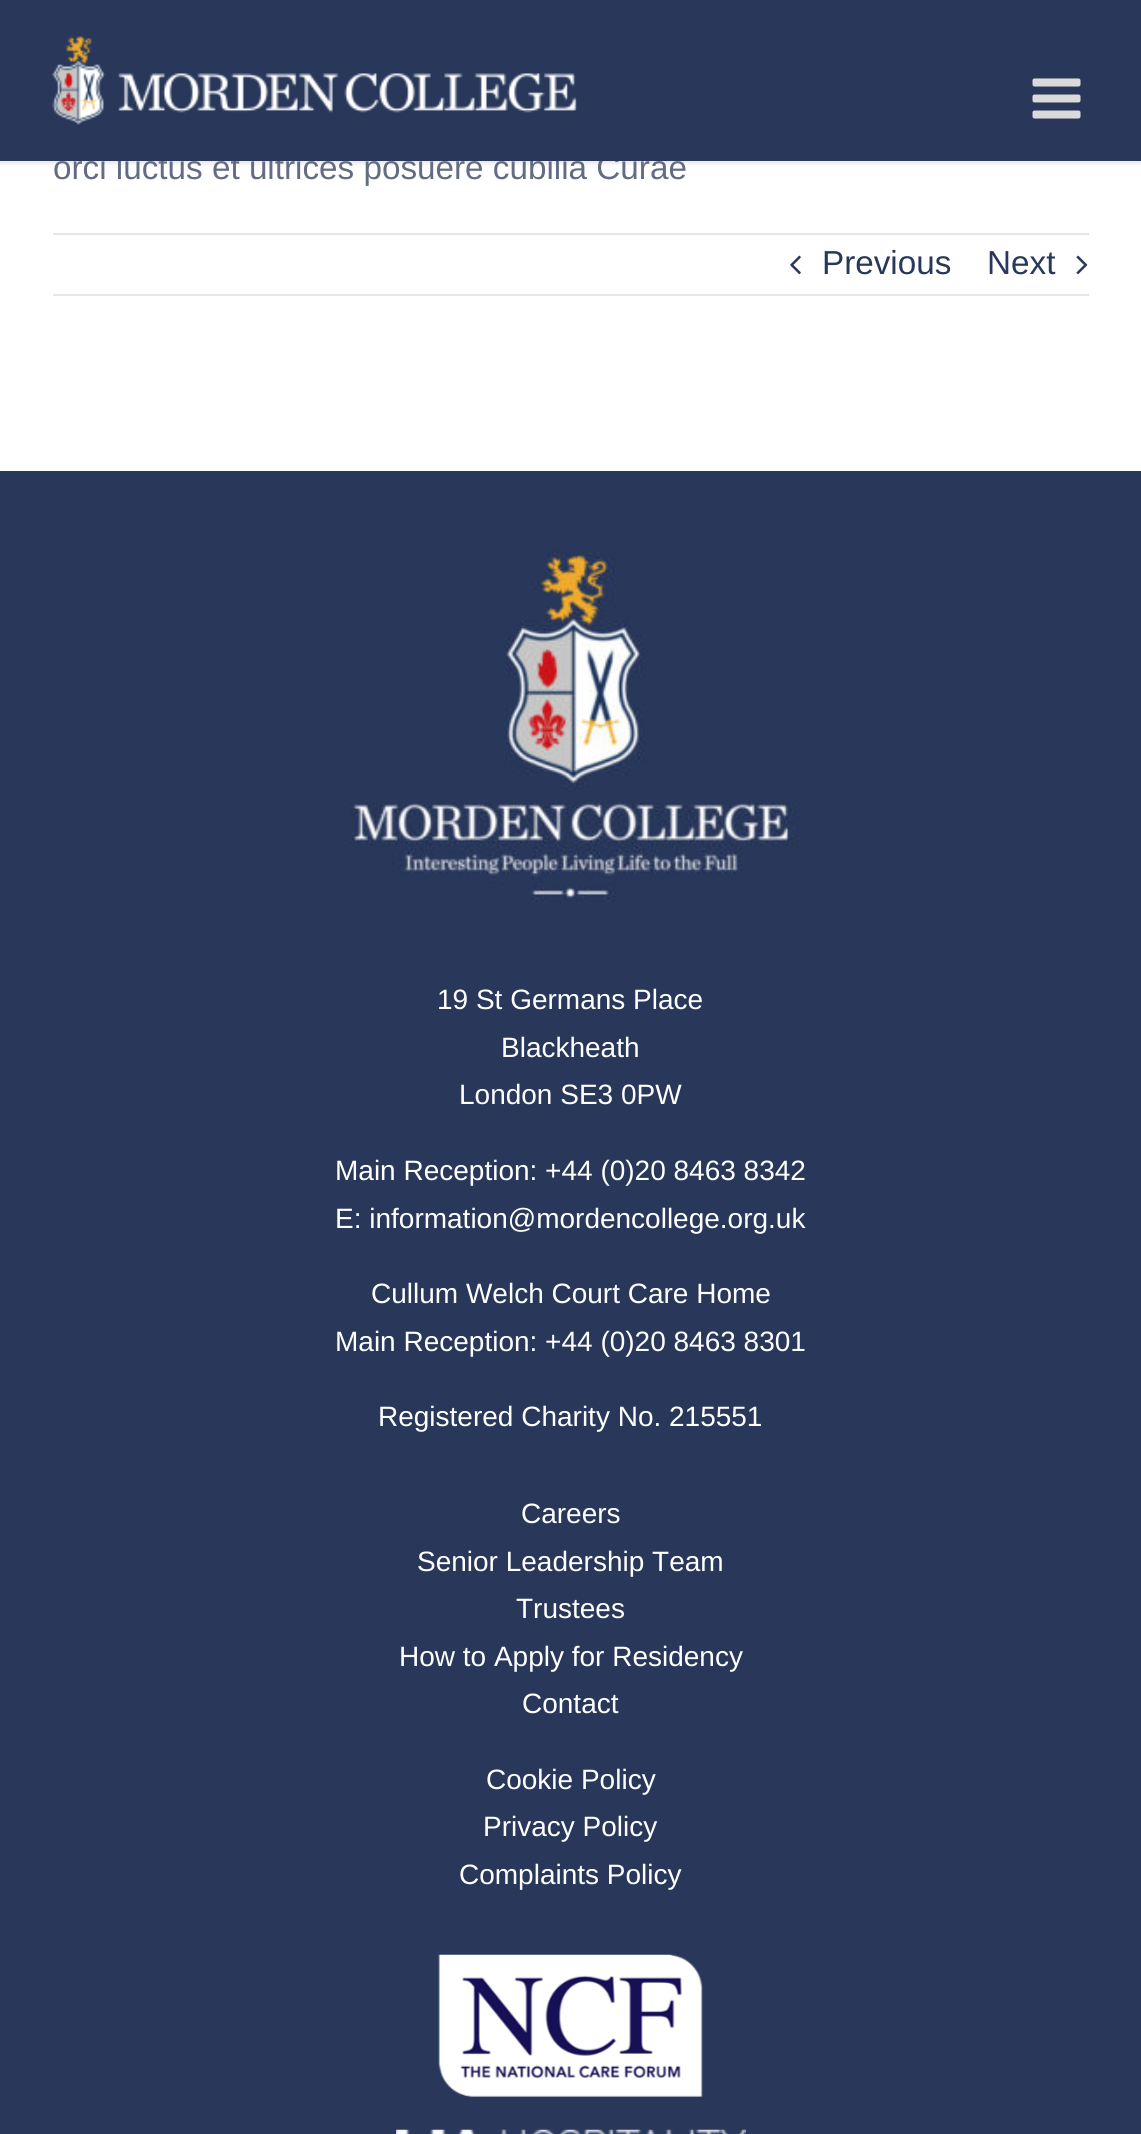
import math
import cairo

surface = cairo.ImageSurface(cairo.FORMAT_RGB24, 1141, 2134)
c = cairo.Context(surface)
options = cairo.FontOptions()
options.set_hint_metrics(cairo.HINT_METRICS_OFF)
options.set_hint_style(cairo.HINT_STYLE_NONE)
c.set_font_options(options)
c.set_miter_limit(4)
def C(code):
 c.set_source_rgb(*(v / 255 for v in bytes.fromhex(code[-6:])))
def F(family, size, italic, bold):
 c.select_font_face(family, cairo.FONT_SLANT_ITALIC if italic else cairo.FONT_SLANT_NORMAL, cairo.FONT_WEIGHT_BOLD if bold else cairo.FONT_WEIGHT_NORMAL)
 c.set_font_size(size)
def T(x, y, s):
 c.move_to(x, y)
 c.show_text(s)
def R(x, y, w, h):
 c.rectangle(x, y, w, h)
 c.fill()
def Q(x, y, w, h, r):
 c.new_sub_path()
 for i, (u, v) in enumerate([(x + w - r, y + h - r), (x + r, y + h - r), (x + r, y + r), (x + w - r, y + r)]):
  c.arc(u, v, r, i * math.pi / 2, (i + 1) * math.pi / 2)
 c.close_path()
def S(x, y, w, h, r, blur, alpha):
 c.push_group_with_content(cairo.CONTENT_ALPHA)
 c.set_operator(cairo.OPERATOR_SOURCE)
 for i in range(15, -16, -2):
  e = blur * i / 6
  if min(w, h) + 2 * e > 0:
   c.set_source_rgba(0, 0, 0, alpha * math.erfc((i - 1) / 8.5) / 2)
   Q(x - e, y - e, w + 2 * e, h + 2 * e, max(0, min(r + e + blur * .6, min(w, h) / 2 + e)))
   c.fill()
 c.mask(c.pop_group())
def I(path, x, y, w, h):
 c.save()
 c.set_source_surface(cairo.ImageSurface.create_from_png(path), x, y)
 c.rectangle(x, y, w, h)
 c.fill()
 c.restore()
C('ffffff')
c.paint()
C('000000')
S(0,2,1141,161,0,2.5,.12)
F('Liberation Sans',33.25,0,0)
C('646c82')
T(53,179,'orci luctus et ultrices posuere cubilia Curae')
C('29385a')
R(0,0,1141,161)
I('1.png',52,36,525,89)
I('2.png',1032,78,49,41)
C('e7e6e6')
R(53,233,1036,2)
R(53,294,1036,2)
I('3.png',790,255,11,20)
C('29385a')
T(822,274,'Previous')
T(987,274,'Next')
I('4.png',1076,255,12,20)
R(0,471,1141,1663)
I('5.png',350,551,448,351)
F('Liberation Sans',28,0,0)
C('ffffff')
T(437,1009,'19 St Germans Place')
T(501,1057,'Blackheath')
T(459,1104,'London SE3 0PW')
T(335,1180,'Main Reception: +44 (0)20 8463 8342')
T(335,1228,'E: information@mordencollege.org.uk')
T(371,1303,'Cullum Welch Court Care Home')
T(335,1351,'Main Reception: +44 (0)20 8463 8301')
T(378,1426,'Registered Charity No. 215551')
T(521,1523,'Careers')
T(417,1571,'Senior Leadership Team')
T(516,1618,'Trustees')
T(399,1666,'How to Apply for Residency')
T(522,1713,'Contact')
T(486,1789,'Cookie Policy')
T(483,1836,'Privacy Policy')
T(459,1884,'Complaints Policy')
I('6.png',438,1954,265,143)
I('7.png',396,2129,350,5)
surface.write_to_png('o.png')
